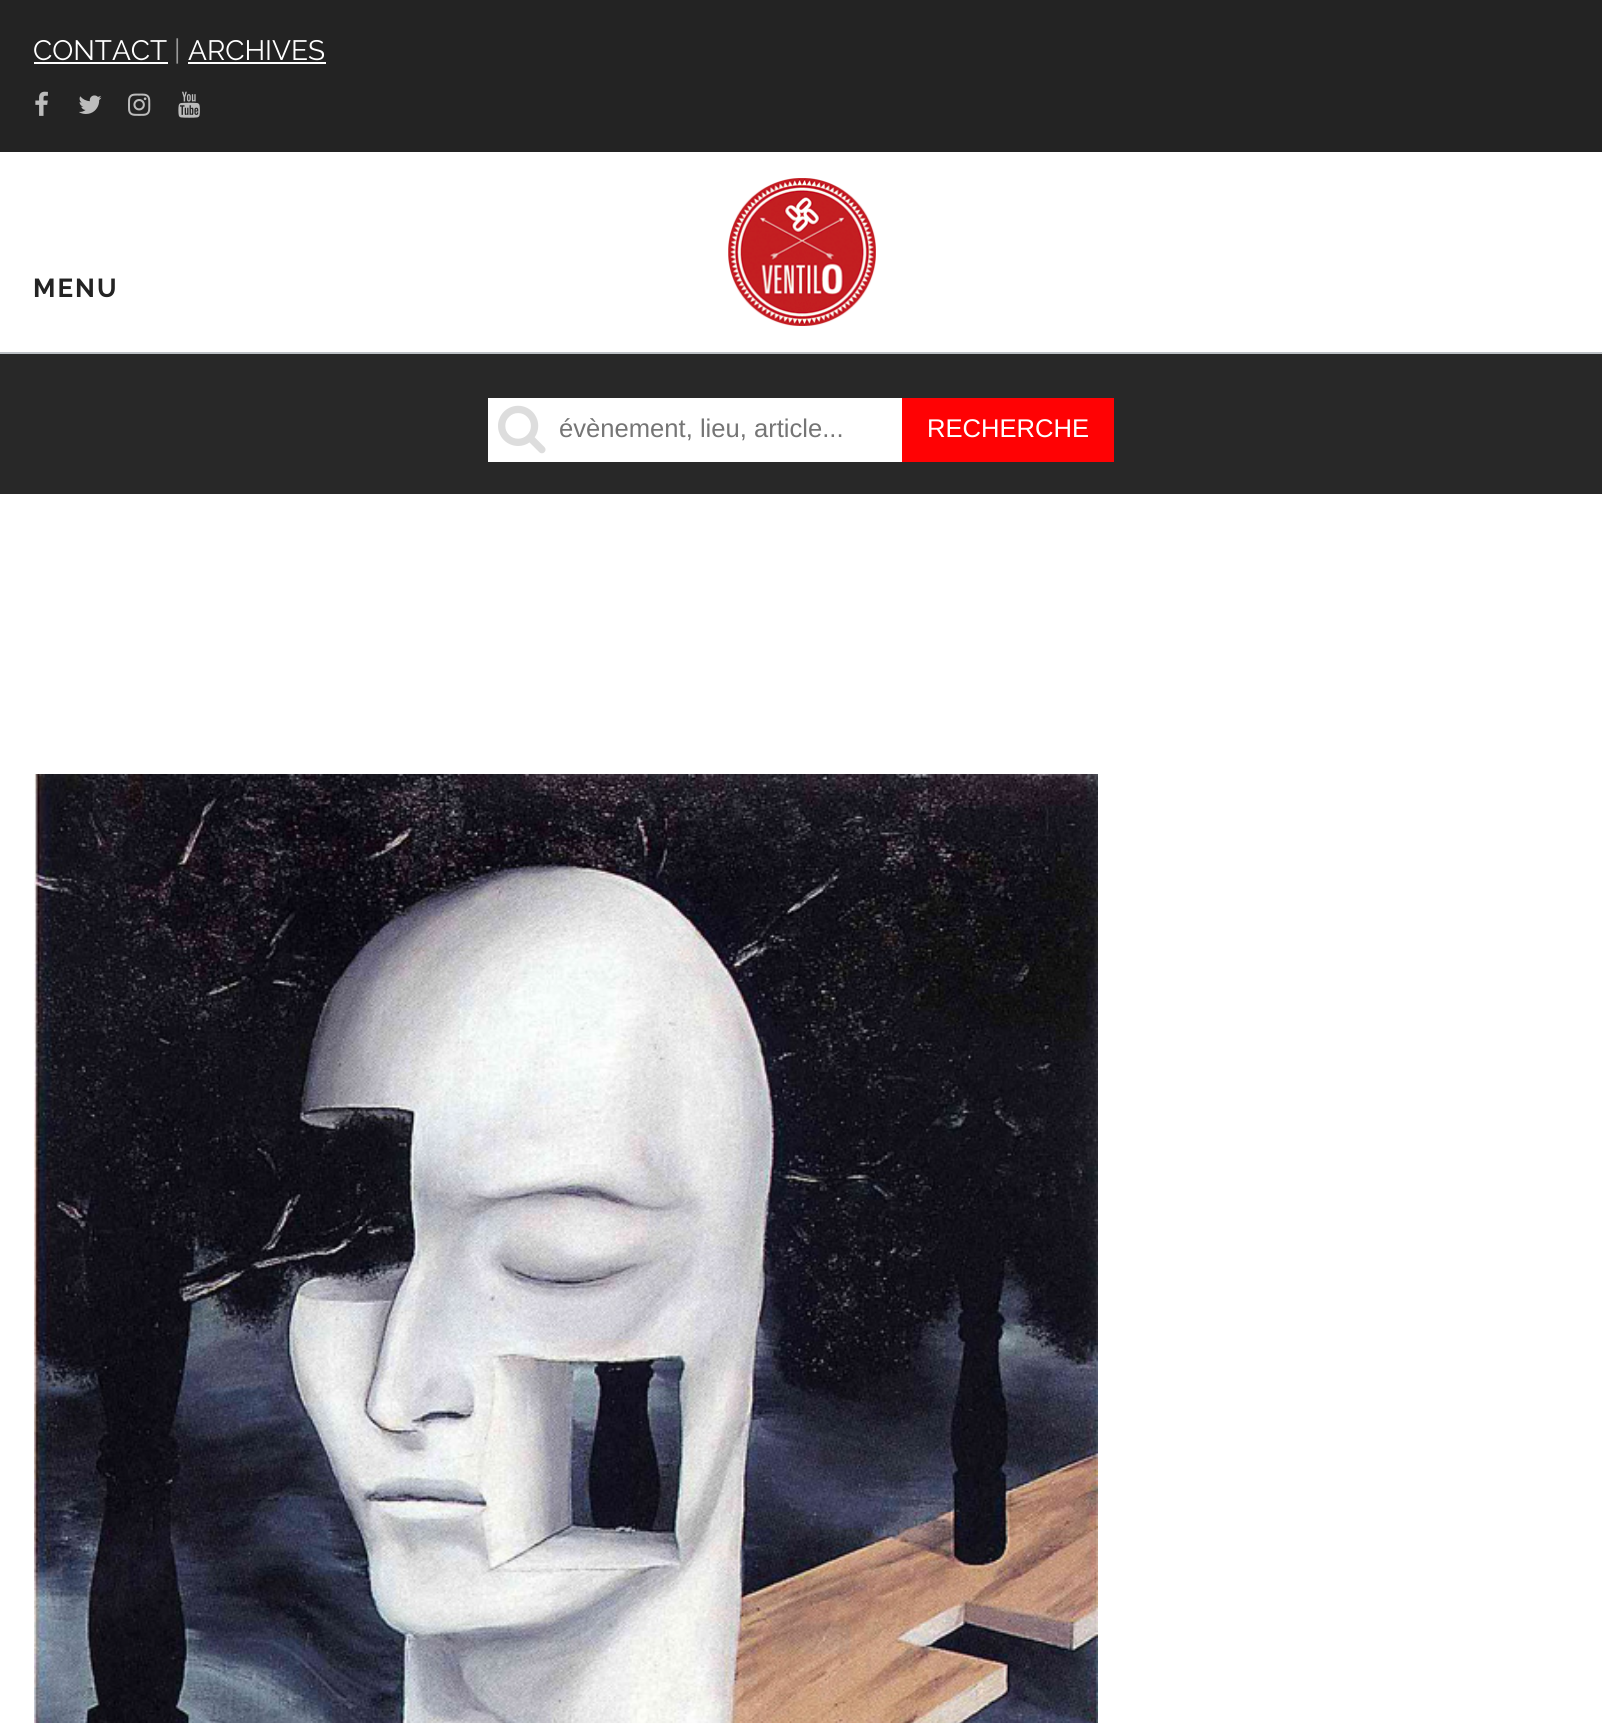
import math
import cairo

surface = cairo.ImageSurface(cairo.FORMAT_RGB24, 1602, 1723)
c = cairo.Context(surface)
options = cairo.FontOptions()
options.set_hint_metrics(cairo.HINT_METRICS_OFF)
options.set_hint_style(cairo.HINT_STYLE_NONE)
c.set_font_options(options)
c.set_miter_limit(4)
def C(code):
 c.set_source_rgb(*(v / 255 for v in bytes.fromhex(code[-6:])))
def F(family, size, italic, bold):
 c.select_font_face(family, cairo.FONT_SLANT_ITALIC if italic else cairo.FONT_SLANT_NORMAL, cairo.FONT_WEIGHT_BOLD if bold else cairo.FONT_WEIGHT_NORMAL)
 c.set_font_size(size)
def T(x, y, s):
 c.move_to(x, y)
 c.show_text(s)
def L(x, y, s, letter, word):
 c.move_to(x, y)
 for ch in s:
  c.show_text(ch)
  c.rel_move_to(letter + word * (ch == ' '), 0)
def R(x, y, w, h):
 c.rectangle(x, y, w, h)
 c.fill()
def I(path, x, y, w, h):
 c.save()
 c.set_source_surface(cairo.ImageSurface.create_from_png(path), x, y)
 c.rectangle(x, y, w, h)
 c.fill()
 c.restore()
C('ffffff')
c.paint()
C('232323')
R(0,0,1602,152)
F('Raleway',28,0,0)
C('ffffff')
T(33,60,'CONTACT')
R(34,62,134,2)
C('999999')
T(174,60,'|')
C('ffffff')
T(188,60,'ARCHIVES')
R(188,62,138,2)
I('1.png',35,91,13,25)
I('2.png',79,95,23,19)
I('3.png',128,93,23,23)
I('4.png',178,91,22,27)
C('bcc0c4')
R(0,352,1602,2)
F('Raleway',26,0,1)
C('232323')
L(33,297,'MENU',2,0)
I('5.png',728,178,148,148)
C('282828')
R(0,354,1602,140)
C('ffffff')
R(488,398,414,64)
I('6.png',498,405,48,49)
F('Liberation Sans',25.6,0,0)
C('757575')
T(559,437,'évènement, lieu, article...')
C('ff0204')
R(902,398,212,64)
C('ffffff')
T(927,437,'RECHERCHE')
I('7.png',34,774,1064,949)
surface.write_to_png('o.png')
